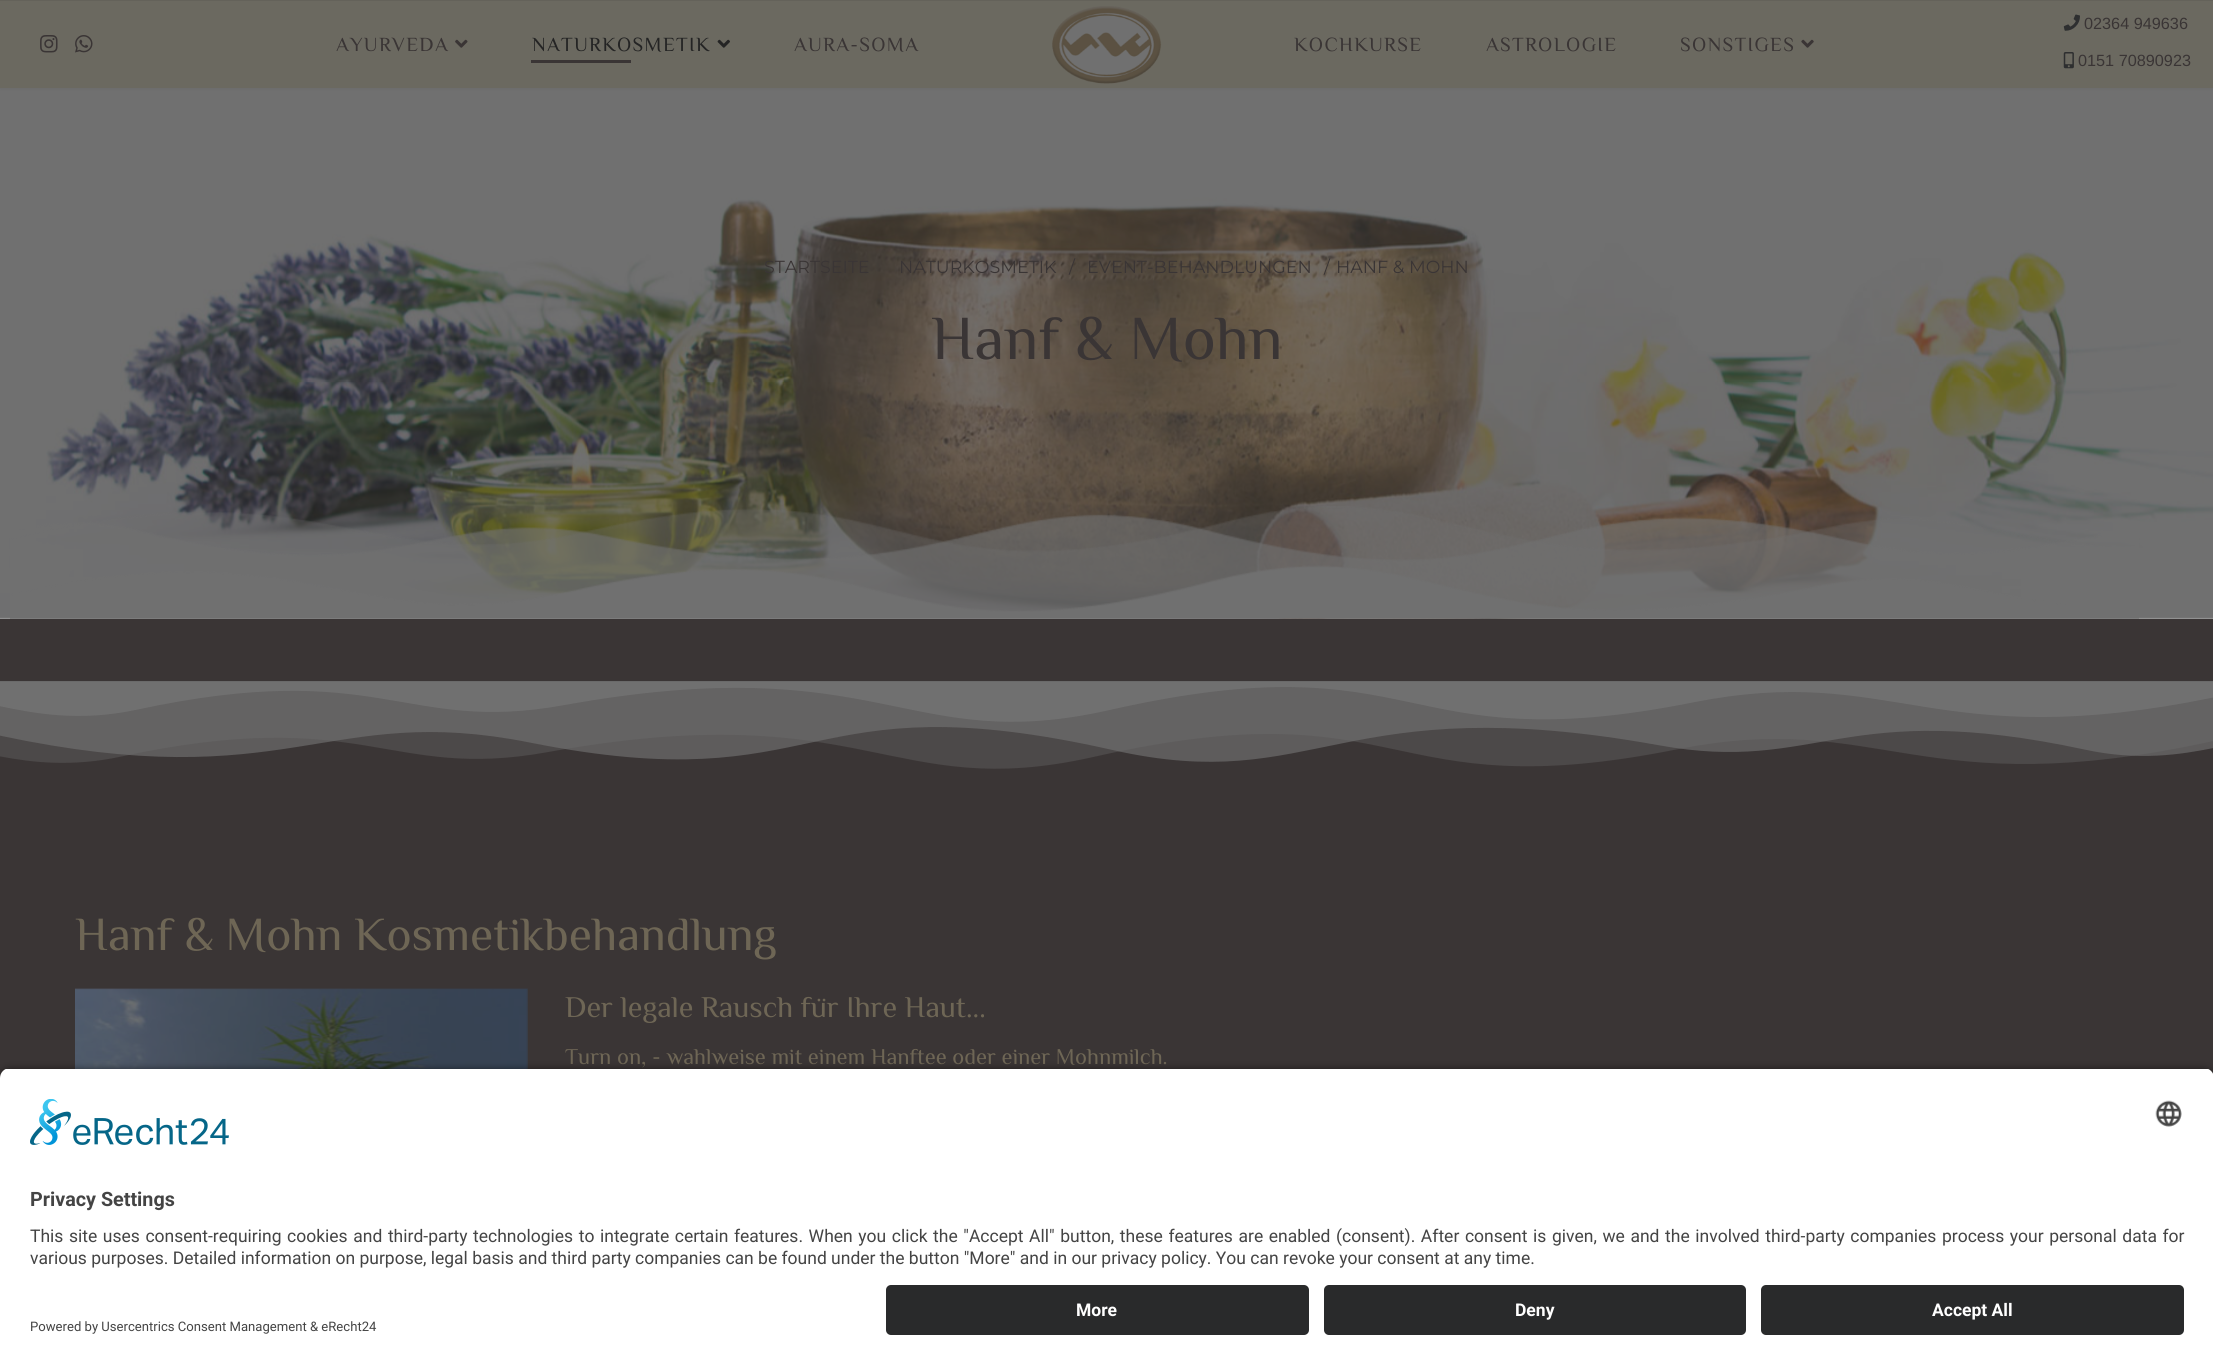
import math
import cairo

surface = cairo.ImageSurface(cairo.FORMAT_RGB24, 2213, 1365)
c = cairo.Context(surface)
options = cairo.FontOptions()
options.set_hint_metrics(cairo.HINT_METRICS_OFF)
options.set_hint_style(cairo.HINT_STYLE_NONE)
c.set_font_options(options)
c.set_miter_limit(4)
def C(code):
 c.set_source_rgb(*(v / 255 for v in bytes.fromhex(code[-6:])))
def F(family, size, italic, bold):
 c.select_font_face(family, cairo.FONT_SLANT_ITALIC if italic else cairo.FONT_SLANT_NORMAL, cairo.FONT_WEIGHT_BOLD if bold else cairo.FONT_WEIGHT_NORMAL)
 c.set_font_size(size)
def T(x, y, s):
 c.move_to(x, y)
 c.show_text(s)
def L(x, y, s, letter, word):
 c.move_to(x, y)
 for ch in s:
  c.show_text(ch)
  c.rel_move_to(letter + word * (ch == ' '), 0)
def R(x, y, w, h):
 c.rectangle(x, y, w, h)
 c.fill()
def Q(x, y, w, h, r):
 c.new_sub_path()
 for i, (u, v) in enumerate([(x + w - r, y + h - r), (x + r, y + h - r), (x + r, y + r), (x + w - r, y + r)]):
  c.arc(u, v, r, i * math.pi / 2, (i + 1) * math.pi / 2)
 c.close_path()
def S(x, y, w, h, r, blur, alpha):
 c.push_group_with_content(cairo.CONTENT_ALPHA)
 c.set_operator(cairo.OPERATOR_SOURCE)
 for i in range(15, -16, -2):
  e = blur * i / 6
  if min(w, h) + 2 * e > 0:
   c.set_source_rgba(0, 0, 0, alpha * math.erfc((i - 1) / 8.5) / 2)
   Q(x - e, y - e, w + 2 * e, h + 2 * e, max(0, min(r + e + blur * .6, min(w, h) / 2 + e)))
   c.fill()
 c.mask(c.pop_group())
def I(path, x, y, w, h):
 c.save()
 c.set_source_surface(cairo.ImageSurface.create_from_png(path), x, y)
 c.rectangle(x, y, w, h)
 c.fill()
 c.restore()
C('ffffff')
c.paint()
I('9.png',0,88,2213,531)
C('242424')
S(0,0,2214,88,0,2.5,.1)
C('6b6960')
R(0,1,2213,87)
C('64625a')
R(0,0,2213,1)
I('1.png',40,35,18,18)
I('2.png',75,35,18,18)
F('Philosopher',20,0,0)
C('3a3535')
L(336,51,'AYURVEDA',1.3,0)
I('3.png',455,39,13,9)
C('242424')
L(532,51,'NATURKOSMETIK',1.3,0)
I('4.png',717,39,13,9)
C('3a3535')
R(531,60,100,3)
L(794,51,'AURA-SOMA',1.3,0)
I('5.png',1052,6,110,78)
L(1294,51,'KOCHKURSE',1.3,0)
L(1486,51,'ASTROLOGIE',1.3,0)
L(1680,51,'SONSTIGES',1.3,0)
I('6.png',1801,39,13,9)
I('7.png',2063,14,17,17)
F('Liberation Sans',16.25,0,0)
T(2084,29,'02364 949636')
I('8.png',2063,52,11,17)
T(2078,66,'0151 70890923')
F('Montserrat Thin',17.5,0,0)
T(764,273,'STARTSEITE')
T(899,273,'NATURKOSMETIK')
T(1069,273,'/')
T(1087,273,'EVENT-BEHANDLUNGEN')
T(1324,273,'/')
T(1336,273,'HANF & MOHN')
F('Philosopher',62.5,0,0)
T(931,359,'Hanf & Mohn')
I('10.png',10,506,2129,113)
R(0,619,2213,459)
I('11.png',0,681,2213,88)
F('Philosopher',47.5,0,0)
C('6e6655')
T(75,950,'Hanf & Mohn Kosmetikbehandlung')
I('12.png',75,988,453,81)
F('Philosopher',30,0,0)
T(565,1017,'Der legale Rausch für Ihre Haut...')
F('Philosopher',22.5,0,0)
T(565,1064,'Turn on, - wahlweise mit einem Hanftee oder einer Mohnmilch.')
C('000000')
S(0,1071,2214,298,10,4.5,.8)
c.save()
c.new_path()
c.move_to(10,1068)
c.line_to(2204,1068)
c.curve_to(2209.5,1068,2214,1072.5,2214,1078)
c.line_to(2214,1275)
c.line_to(0,1275)
c.line_to(0,1078)
c.curve_to(0,1072.5,4.5,1068,10,1068)
c.close_path()
c.clip()
C('ffffff')
R(0,1069,2213,206)
c.restore()
I('13.png',30,1099,199,46)
I('14.png',2155,1100,27,27)
F('Roboto',19.75,0,1)
C('444444')
T(30,1206,'Privacy Settings')
F('Roboto',17.5,0,0)
L(30,1242,'This site uses consent-requiring cookies and third-party technologies to integrate certain features. When you click the "Accept All" button, these features are enabled (consent). After consent is given, we and the involved third-party companies process your personal data for',0,1.25)
T(30,1264,'various purposes. Detailed information on purpose, legal basis and third party companies can be found under the button "More" and in our privacy policy. You can revoke your consent at any time.')
C('ffffff')
R(0,1275,2213,90)
C('292a2b')
Q(886,1285,423,50,5)
c.fill()
F('Roboto',17.5,0,1)
C('ffffff')
T(1076,1316,'More')
C('292a2b')
Q(1324,1285,422,50,5)
c.fill()
C('ffffff')
T(1515,1316,'Deny')
C('292a2b')
Q(1761,1285,423,50,5)
c.fill()
C('ffffff')
T(1932,1316,'Accept All')
F('Roboto',13.1,0,0)
C('444444')
T(30,1331,'Powered by Usercentrics Consent Management & eRecht24')
surface.write_to_png('o.png')
